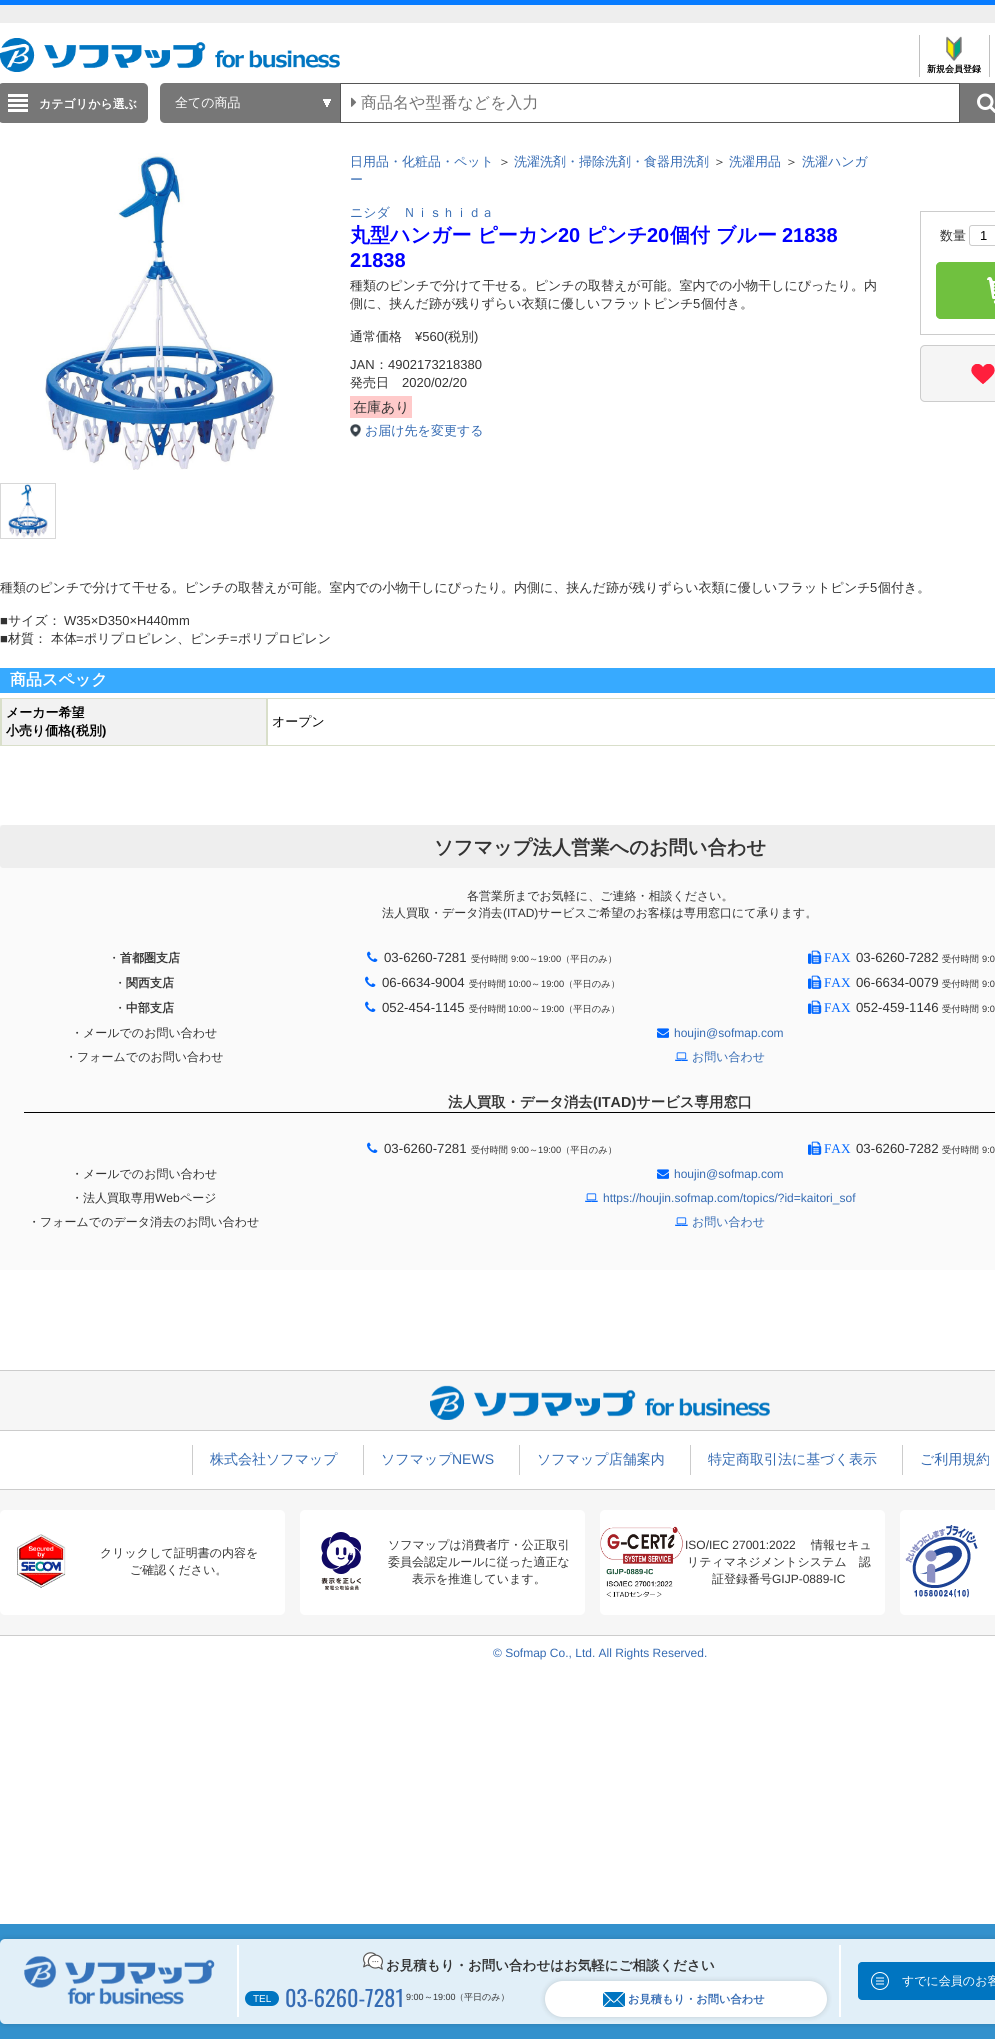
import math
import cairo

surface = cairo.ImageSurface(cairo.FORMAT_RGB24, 995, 2039)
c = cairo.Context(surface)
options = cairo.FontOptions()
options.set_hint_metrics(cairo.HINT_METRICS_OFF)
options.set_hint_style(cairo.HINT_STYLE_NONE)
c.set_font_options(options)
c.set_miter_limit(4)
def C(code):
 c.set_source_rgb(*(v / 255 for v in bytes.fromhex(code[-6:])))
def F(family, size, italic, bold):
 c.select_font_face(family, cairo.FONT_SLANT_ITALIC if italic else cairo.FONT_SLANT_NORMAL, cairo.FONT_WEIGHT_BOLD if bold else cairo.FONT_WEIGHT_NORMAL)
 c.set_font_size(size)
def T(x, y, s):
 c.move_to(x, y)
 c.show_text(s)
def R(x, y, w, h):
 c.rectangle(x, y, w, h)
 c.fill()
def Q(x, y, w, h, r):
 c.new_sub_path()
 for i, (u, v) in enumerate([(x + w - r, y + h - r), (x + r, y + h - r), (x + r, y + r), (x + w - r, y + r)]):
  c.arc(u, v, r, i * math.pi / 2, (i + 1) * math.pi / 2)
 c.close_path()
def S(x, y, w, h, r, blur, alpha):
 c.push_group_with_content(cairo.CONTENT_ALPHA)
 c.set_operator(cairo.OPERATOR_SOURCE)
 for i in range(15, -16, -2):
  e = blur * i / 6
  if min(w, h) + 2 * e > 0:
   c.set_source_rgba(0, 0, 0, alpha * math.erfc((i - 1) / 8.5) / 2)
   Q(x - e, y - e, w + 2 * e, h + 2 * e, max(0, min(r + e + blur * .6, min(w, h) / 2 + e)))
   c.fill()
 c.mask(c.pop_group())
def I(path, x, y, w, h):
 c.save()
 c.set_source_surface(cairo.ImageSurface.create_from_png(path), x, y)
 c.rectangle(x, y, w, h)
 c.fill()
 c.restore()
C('ffffff')
c.paint()
C('087cff')
R(0,0,995,5)
C('eeeeee')
R(0,5,995,18)
I('1.png',0,38,340,34)
C('c0c0c0')
R(919,35,1,42)
I('2.png',946,36,16,25)
F('WenQuanYi Zen Hei',9,0,1)
C('000000')
T(927,72,'新規会員登録')
C('c0c0c0')
R(989,35,1,42)
C('777777')
Q(-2,83,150,40,5)
c.fill()
I('3.png',8,94,20,18)
F('WenQuanYi Zen Hei',12,0,1)
C('ffffff')
T(39,108,'カテゴリから選ぶ')
C('777777')
c.new_path()
c.move_to(165,83)
c.line_to(340,83)
c.line_to(340,123)
c.line_to(165,123)
c.curve_to(162,123,160,121,160,118)
c.line_to(160,88)
c.curve_to(160,85,162,83,165,83)
c.close_path()
c.fill()
I('4.png',323,99,8,8)
F('WenQuanYi Zen Hei Medium',13,0,0)
C('ffffff')
T(175,107,'全ての商品')
c.rectangle(340.5,83.5,619,39)
C('555555')
c.set_line_width(1)
c.stroke()
I('5.png',351,97,6,10)
F('WenQuanYi Zen Hei Medium',16,0,0)
C('757575')
T(361,108,'商品名や型番などを入力')
C('777777')
R(960,83,35,40)
I('6.png',977,93,18,20)
I('7.png',45,153,230,317)
c.rectangle(.5,483.5,55,55)
C('d8d8d8')
c.stroke()
I('8.png',8,484,40,54)
F('WenQuanYi Zen Hei Medium',13,0,0)
C('356bb3')
T(350,166,'日用品・化粧品・ペット')
C('333333')
T(498,166,'＞')
C('356bb3')
T(514,166,'洗濯洗剤・掃除洗剤・食器用洗剤')
C('333333')
T(713,166,'＞')
C('356bb3')
T(729,166,'洗濯用品')
C('333333')
T(785,166,'＞')
C('356bb3')
T(802,166,'洗濯ハンガ')
T(350,184,'ー')
T(350,217,'ニシダ　Ｎｉｓｈｉｄａ')
F('WenQuanYi Zen Hei',20,0,1)
C('0000ff')
T(350,242,'丸型ハンガー ピーカン')
F('Liberation Sans',20,0,1)
T(558,242,'20')
F('WenQuanYi Zen Hei',20,0,1)
T(586,242,'ピンチ')
F('Liberation Sans',20,0,1)
T(647,242,'20')
F('WenQuanYi Zen Hei',20,0,1)
T(670,242,'個付 ブルー')
F('Liberation Sans',20,0,1)
T(782,242,'21838')
T(350,267,'21838')
F('WenQuanYi Zen Hei Medium',13,0,0)
C('333333')
T(350,290,'種類のピンチで分けて干せる。ピンチの取替えが可能。室内での小物干しにぴったり。内')
T(350,308,'側に、挟んだ跡が残りずらい衣類に優しいフラットピンチ')
F('Liberation Sans',13,0,0)
T(693,308,'5')
F('WenQuanYi Zen Hei Medium',13,0,0)
T(701,308,'個付き。')
T(350,341,'通常価格')
F('Liberation Sans',13,0,0)
T(415,341,'¥560(')
F('WenQuanYi Zen Hei Medium',13,0,0)
T(448,341,'税別')
F('Liberation Sans',13,0,0)
T(474,341,')')
T(350,369,'JAN')
F('WenQuanYi Zen Hei Medium',13,0,0)
T(375,369,'：')
F('Liberation Sans',13,0,0)
T(388,369,'4902173218380')
F('WenQuanYi Zen Hei Medium',13,0,0)
T(350,387,'発売日')
F('Liberation Sans',13,0,0)
T(402,387,'2020/02/20')
C('ffcaca')
R(350,396,62,22)
F('WenQuanYi Zen Hei Medium',14,0,0)
C('333333')
T(353,412,'在庫あり')
I('9.png',350,424,11,13)
F('WenQuanYi Zen Hei Medium',13,0,0)
C('356bb3')
T(365,435,'お届け先を変更する')
c.rectangle(920.5,211.5,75,123)
C('cccccc')
c.stroke()
C('333333')
T(940,240,'数量')
Q(969.5,225.5,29,20,2.5)
C('cccccc')
c.stroke()
F('Liberation Sans',13,0,0)
C('000000')
T(980,240,'1')
C('70c13f')
Q(936,262,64,57,5)
c.fill()
I('10.png',987,277,8,27)
Q(936.5,262.5,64,56,4.5)
c.stroke()
C('f5f5f5')
Q(920,345,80,57,5)
c.fill()
I('11.png',971,364,24,20)
Q(920.5,345.5,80,56,4.5)
C('cccccc')
c.stroke()
F('WenQuanYi Zen Hei Medium',13,0,0)
C('333333')
T(0,592,'種類のピンチで分けて干せる。ピンチの取替えが可能。室内での小物干しにぴったり。内側に、挟んだ跡が残りずらい衣類に優しいフラットピンチ')
F('Liberation Sans',13,0,0)
T(870,592,'5')
F('WenQuanYi Zen Hei Medium',13,0,0)
T(878,592,'個付き。')
F('Liberation Sans',13,0,0)
T(0,625,'■')
F('WenQuanYi Zen Hei Medium',13,0,0)
T(8,625,'サイズ：')
F('Liberation Sans',13,0,0)
T(64,625,'W35×D350×H440mm')
T(0,643,'■')
F('WenQuanYi Zen Hei Medium',13,0,0)
T(8,643,'材質： 本体')
F('Liberation Sans',13,0,0)
T(76,643,'=')
F('WenQuanYi Zen Hei Medium',13,0,0)
T(84,643,'ポリプロピレン、ピンチ')
F('Liberation Sans',13,0,0)
T(230,643,'=')
F('WenQuanYi Zen Hei Medium',13,0,0)
T(238,643,'ポリプロピレン')
C('37aaff')
R(0,668,995,25)
F('WenQuanYi Zen Hei',16,0,1)
C('ffffff')
T(10,685,'商品スペック')
C('d9dfca')
R(0,698,995,48)
C('f2f2f2')
R(2,699,264,46)
F('WenQuanYi Zen Hei',13,0,1)
C('000000')
T(6,717,'メーカー希望')
T(6,735,'小売り価格')
F('Liberation Sans',13,0,1)
T(71,735,'(')
F('WenQuanYi Zen Hei',13,0,1)
T(76,735,'税別')
F('Liberation Sans',13,0,1)
T(102,735,')')
C('ffffff')
R(268,699,727,46)
F('WenQuanYi Zen Hei Medium',13,0,0)
C('000000')
T(272,726,'オープン')
C('fafafa')
R(0,825,995,445)
C('eeeeee')
Q(0,825,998,43,3)
c.fill()
F('WenQuanYi Zen Hei',19.25,0,1)
C('333333')
T(434,854,'ソフマップ法人営業へのお問い合わせ')
F('WenQuanYi Zen Hei Medium',12,0,0)
T(467,900,'各営業所までお気軽に、ご連絡・相談ください。')
T(382,917,'法人買取・データ消去')
F('Liberation Sans',12,0,0)
T(503,917,'(ITAD)')
F('WenQuanYi Zen Hei Medium',12,0,0)
T(538,917,'サービスご希望のお客様は専用窓口にて承ります。')
T(108,962,'・')
F('WenQuanYi Zen Hei',12,0,1)
T(120,962,'首都圏支店')
I('12.png',367,951,11,11)
F('Liberation Sans',13.25,0,0)
T(384,962,'03-6260-7281')
F('WenQuanYi Zen Hei Medium',9.25,0,0)
T(471,962,'受付時間')
F('Liberation Sans',9.25,0,0)
T(511,962,'9:00')
F('WenQuanYi Zen Hei Medium',9.25,0,0)
T(529,962,'～')
F('Liberation Sans',9.25,0,0)
T(538,962,'19:00')
F('WenQuanYi Zen Hei Medium',9.25,0,0)
T(561,962,'（平日のみ）')
I('13.png',808,950,14,14)
F('Liberation Serif',13.25,0,0)
C('0066ff')
T(824,962,'FAX')
F('Liberation Sans',13.25,0,0)
C('333333')
T(856,962,'03-6260-7282')
F('WenQuanYi Zen Hei Medium',9.25,0,0)
T(942,962,'受付時間')
F('Liberation Sans',9.25,0,0)
T(982,962,'9:0')
F('WenQuanYi Zen Hei Medium',12,0,0)
T(114,987,'・')
F('WenQuanYi Zen Hei',12,0,1)
T(126,987,'関西支店')
I('12.png',365,976,11,11)
F('Liberation Sans',13.25,0,0)
T(382,987,'06-6634-9004')
F('WenQuanYi Zen Hei Medium',9.25,0,0)
T(469,987,'受付時間')
F('Liberation Sans',9.25,0,0)
T(508,987,'10:00')
F('WenQuanYi Zen Hei Medium',9.25,0,0)
T(531,987,'～')
F('Liberation Sans',9.25,0,0)
T(541,987,'19:00')
F('WenQuanYi Zen Hei Medium',9.25,0,0)
T(564,987,'（平日のみ）')
I('13.png',808,975,14,14)
F('Liberation Serif',13.25,0,0)
C('0066ff')
T(824,987,'FAX')
F('Liberation Sans',13.25,0,0)
C('333333')
T(856,987,'06-6634-0079')
F('WenQuanYi Zen Hei Medium',9.25,0,0)
T(942,987,'受付時間')
F('Liberation Sans',9.25,0,0)
T(982,987,'9:0')
F('WenQuanYi Zen Hei Medium',12,0,0)
T(114,1012,'・')
F('WenQuanYi Zen Hei',12,0,1)
T(126,1012,'中部支店')
I('12.png',365,1001,11,11)
F('Liberation Sans',13.25,0,0)
T(382,1012,'052-454-1145')
F('WenQuanYi Zen Hei Medium',9.25,0,0)
T(469,1012,'受付時間')
F('Liberation Sans',9.25,0,0)
T(508,1012,'10:00')
F('WenQuanYi Zen Hei Medium',9.25,0,0)
T(531,1012,'～')
F('Liberation Sans',9.25,0,0)
T(541,1012,'19:00')
F('WenQuanYi Zen Hei Medium',9.25,0,0)
T(564,1012,'（平日のみ）')
I('13.png',808,1000,14,14)
F('Liberation Serif',13.25,0,0)
C('0066ff')
T(824,1012,'FAX')
F('Liberation Sans',13.25,0,0)
C('333333')
T(856,1012,'052-459-1146')
F('WenQuanYi Zen Hei Medium',9.25,0,0)
T(942,1012,'受付時間')
F('Liberation Sans',9.25,0,0)
T(982,1012,'9:0')
F('WenQuanYi Zen Hei Medium',12,0,0)
T(71,1037,'・メールでのお問い合わせ')
I('14.png',657,1028,12,10)
F('Liberation Sans',12,0,0)
C('356bb3')
T(674,1037,'houjin@sofmap.com')
F('WenQuanYi Zen Hei Medium',12,0,0)
C('333333')
T(65,1061,'・フォームでのお問い合わせ')
I('15.png',675,1052,13,9)
C('356bb3')
T(692,1061,'お問い合わせ')
C('000000')
R(24,1112,971,1)
F('WenQuanYi Zen Hei',14.4,0,1)
C('333333')
T(448,1107,'法人買取・データ消去')
F('Liberation Sans',14.4,0,1)
T(593,1107,'(ITAD)')
F('WenQuanYi Zen Hei',14.4,0,1)
T(636,1107,'サービス専用窓口')
I('12.png',367,1142,11,11)
F('Liberation Sans',13.25,0,0)
T(384,1153,'03-6260-7281')
F('WenQuanYi Zen Hei Medium',9.25,0,0)
T(471,1153,'受付時間')
F('Liberation Sans',9.25,0,0)
T(511,1153,'9:00')
F('WenQuanYi Zen Hei Medium',9.25,0,0)
T(529,1153,'～')
F('Liberation Sans',9.25,0,0)
T(538,1153,'19:00')
F('WenQuanYi Zen Hei Medium',9.25,0,0)
T(561,1153,'（平日のみ）')
I('13.png',808,1141,14,14)
F('Liberation Serif',13.25,0,0)
C('0066ff')
T(824,1153,'FAX')
F('Liberation Sans',13.25,0,0)
C('333333')
T(856,1153,'03-6260-7282')
F('WenQuanYi Zen Hei Medium',9.25,0,0)
T(942,1153,'受付時間')
F('Liberation Sans',9.25,0,0)
T(982,1153,'9:0')
F('WenQuanYi Zen Hei Medium',12,0,0)
T(71,1178,'・メールでのお問い合わせ')
I('14.png',657,1169,12,10)
F('Liberation Sans',12,0,0)
C('356bb3')
T(674,1178,'houjin@sofmap.com')
F('WenQuanYi Zen Hei Medium',12,0,0)
C('333333')
T(71,1202,'・法人買取専用')
F('Liberation Sans',12,0,0)
T(155,1202,'Web')
F('WenQuanYi Zen Hei Medium',12,0,0)
T(180,1202,'ページ')
I('15.png',585,1193,13,9)
F('Liberation Sans',12,0,0)
C('356bb3')
T(603,1202,'https://houjin.sofmap.com/topics/?id=kaitori_sof')
F('WenQuanYi Zen Hei Medium',12,0,0)
C('333333')
T(28,1226,'・フォームでのデータ消去のお問い合わせ')
I('15.png',675,1217,13,9)
C('356bb3')
T(692,1226,'お問い合わせ')
C('cccccc')
R(0,1370,995,1)
C('f6f6f6')
R(0,1371,995,59)
I('16.png',430,1385,340,35)
C('cccccc')
R(0,1430,995,1)
R(0,1489,995,1)
R(192,1445,1,30)
F('WenQuanYi Zen Hei Medium',14,0,0)
C('356bb3')
T(210,1464,'株式会社ソフマップ')
C('cccccc')
R(363,1445,1,30)
C('356bb3')
T(381,1464,'ソフマップ')
F('Liberation Sans',14,0,0)
T(452,1464,'NEWS')
C('cccccc')
R(519,1445,1,30)
F('WenQuanYi Zen Hei Medium',14,0,0)
C('356bb3')
T(537,1464,'ソフマップ店舗案内')
C('cccccc')
R(690,1445,1,30)
C('356bb3')
T(708,1464,'特定商取引法に基づく表示')
C('cccccc')
R(902,1445,1,30)
C('356bb3')
T(920,1464,'ご利用規約')
C('f6f6f6')
R(0,1490,995,145)
C('cccccc')
R(0,1635,995,1)
C('ffffff')
Q(0,1510,285,105,5)
c.fill()
I('17.png',17,1534,49,54)
F('WenQuanYi Zen Hei Medium',12,0,0)
C('333333')
T(100,1557,'クリックして証明書の内容を')
T(130,1574,'ご確認ください。')
C('ffffff')
Q(300,1510,285,105,5)
c.fill()
I('18.png',321,1532,40,58)
C('333333')
T(388,1549,'ソフマップは消費者庁・公正取引')
T(388,1566,'委員会認定ルールに従った適正な')
T(412,1583,'表示を推進しています。')
C('ffffff')
Q(600,1510,285,105,5)
c.fill()
I('19.png',600,1526,83,71)
F('Liberation Sans',12,0,0)
C('333333')
T(685,1549,'ISO/IEC 27001:2022')
F('WenQuanYi Zen Hei Medium',12,0,0)
T(811,1549,'情報セキュ')
T(687,1566,'リティマネジメントシステム　認')
T(712,1583,'証登録番号')
F('Liberation Sans',12,0,0)
T(772,1583,'GIJP-0889-IC')
C('ffffff')
Q(900,1510,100,105,5)
c.fill()
I('20.png',905,1525,73,73)
C('356bb3')
T(493,1657,'© Sofmap Co., Ltd. All Rights Reserved.')
C('3391cd')
R(0,1924,995,115)
c.save()
c.set_fill_rule(cairo.FILL_RULE_EVEN_ODD)
c.new_path()
c.move_to(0,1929)
c.line_to(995,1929)
c.line_to(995,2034)
c.line_to(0,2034)
c.close_path()
c.move_to(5,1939)
c.line_to(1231,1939)
c.curve_to(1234,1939,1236,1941,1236,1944)
c.line_to(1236,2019)
c.curve_to(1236,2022,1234,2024,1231,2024)
c.line_to(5,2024)
c.curve_to(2,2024,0,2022,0,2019)
c.line_to(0,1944)
c.curve_to(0,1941,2,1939,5,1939)
c.close_path()
c.clip()
C('000000')
S(0,1939,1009,85,5,3,.15)
c.restore()
c.set_source_rgba(1,1,1,0.85)
Q(0,1939,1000,85,5)
c.fill()
I('21.png',24,1956,191,49)
C('ffffff')
R(839,1945,2,72)
R(237,1945,2,72)
I('22.png',363,1952,20,18)
F('WenQuanYi Zen Hei',13.5,0,1)
C('333333')
T(386,1970,'お見積もり・お問い合わせはお気軽にご相談ください')
C('0075c1')
Q(245,1991,34,15,7.5)
c.fill()
F('Liberation Sans',10,0,0)
C('ffffff')
T(253,2002,'TEL')
F('Oswald',22.25,0,0)
C('356bb3')
T(285,2007,'03-6260-7281')
F('Liberation Sans',9,0,0)
C('333333')
T(406,2000,'9:00')
F('WenQuanYi Zen Hei Medium',9,0,0)
T(424,2000,'～')
F('Liberation Sans',9,0,0)
T(433,2000,'19:00')
F('WenQuanYi Zen Hei Medium',9,0,0)
T(455,2000,'（平日のみ）')
C('000000')
S(545,1981,282,36,18,3,.15)
C('ffffff')
Q(545,1981,282,36,18)
c.fill()
I('23.png',603,1992,22,15)
F('WenQuanYi Zen Hei',11.25,0,1)
C('356bb3')
T(628,2003,'お見積もり・お問い合わせ')
C('0075c1')
Q(858,1962,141,38,4)
c.fill()
I('24.png',871,1972,18,18)
F('WenQuanYi Zen Hei Medium',12,0,0)
C('ffffff')
T(902,1985,'すでに会員のお客')
surface.write_to_png('o.png')
